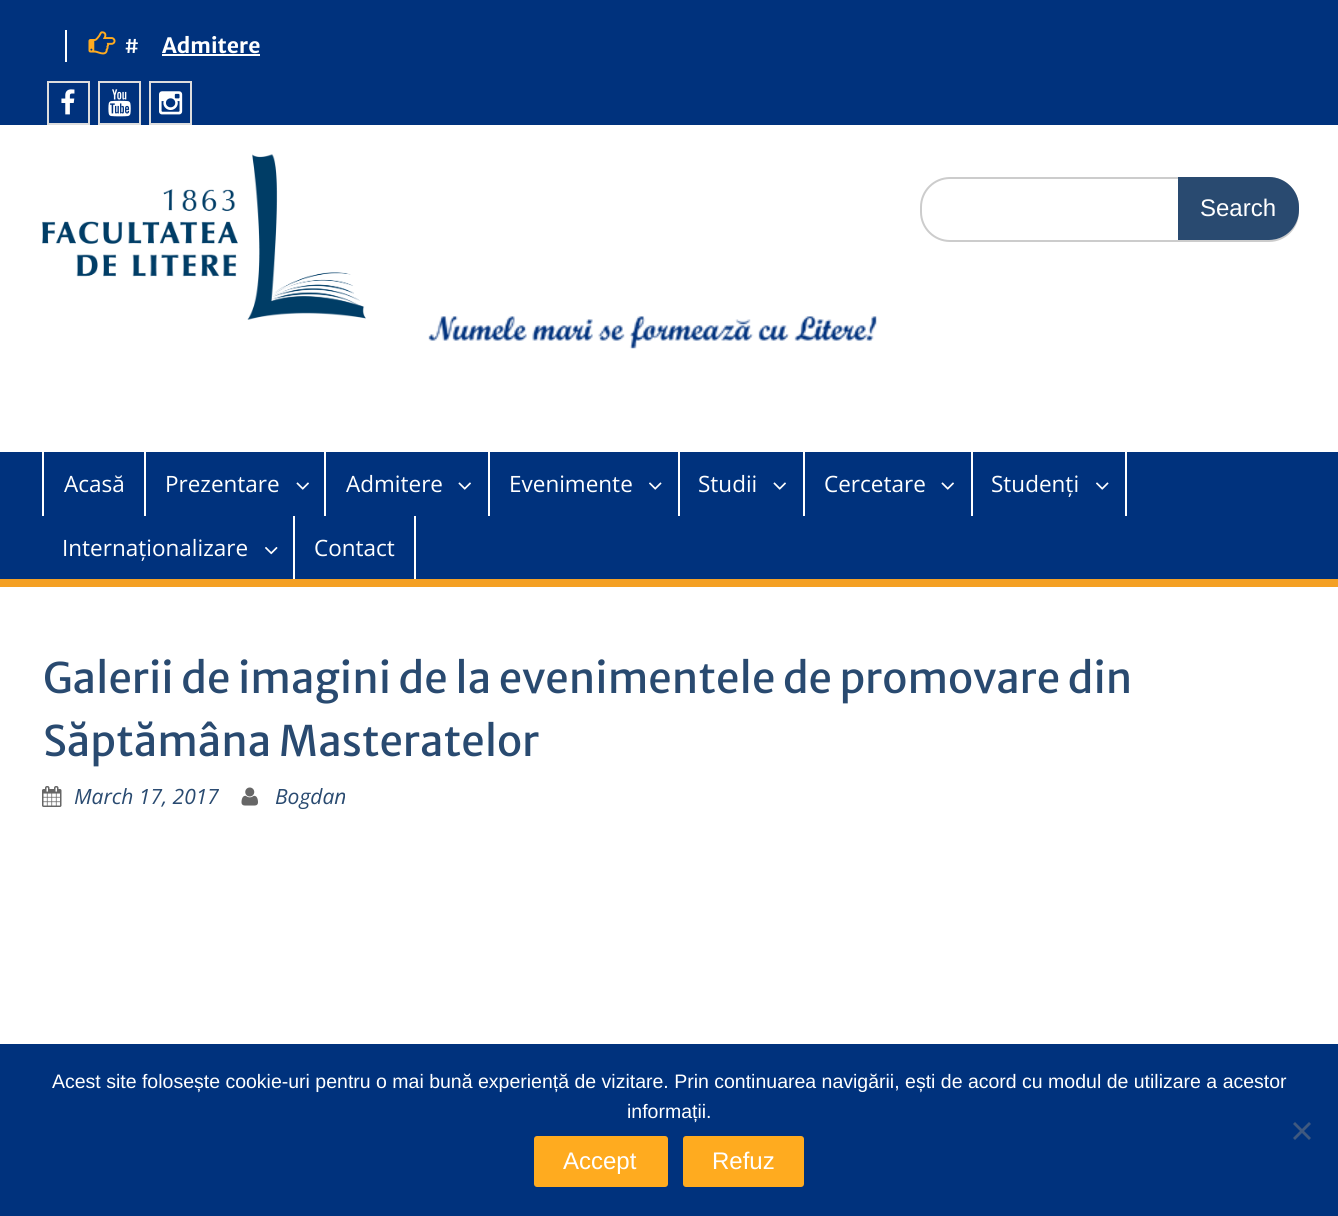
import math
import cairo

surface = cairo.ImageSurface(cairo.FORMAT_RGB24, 1338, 1216)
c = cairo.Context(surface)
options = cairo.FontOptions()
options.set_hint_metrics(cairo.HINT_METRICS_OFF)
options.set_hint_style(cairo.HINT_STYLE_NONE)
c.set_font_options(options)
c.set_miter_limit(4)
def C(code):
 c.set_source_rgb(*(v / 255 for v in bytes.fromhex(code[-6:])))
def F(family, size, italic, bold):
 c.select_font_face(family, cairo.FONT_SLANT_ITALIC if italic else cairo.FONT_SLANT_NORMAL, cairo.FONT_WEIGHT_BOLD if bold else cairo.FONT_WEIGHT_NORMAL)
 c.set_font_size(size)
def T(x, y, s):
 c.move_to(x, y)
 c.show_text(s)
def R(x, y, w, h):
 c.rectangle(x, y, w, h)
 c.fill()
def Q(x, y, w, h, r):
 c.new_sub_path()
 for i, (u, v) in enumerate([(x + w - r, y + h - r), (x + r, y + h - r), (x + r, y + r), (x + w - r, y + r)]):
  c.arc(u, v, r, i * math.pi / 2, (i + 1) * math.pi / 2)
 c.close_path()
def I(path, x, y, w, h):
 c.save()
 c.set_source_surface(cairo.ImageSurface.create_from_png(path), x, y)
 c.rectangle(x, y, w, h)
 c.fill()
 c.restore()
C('ffffff')
c.paint()
C('00327d')
R(0,0,1338,125)
C('ffffff')
R(65,30,2,32)
I('1.png',88,31,28,24)
F('Merriweather Sans',21,0,0)
T(124,53,'#')
F('Merriweather Sans',21,0,1)
T(162,53,'Admitere')
R(162,54,98,2)
c.rectangle(48,82,41,42)
C('dddddd')
c.stroke()
I('2.png',61,89,14,26)
c.rectangle(99,82,41,42)
c.stroke()
I('3.png',108,89,23,28)
c.rectangle(150,82,41,42)
c.stroke()
I('4.png',159,91,24,24)
I('5.png',42,154,324,166)
Q(921,178,377,63,29)
C('cccccc')
c.stroke()
C('294a70')
c.new_path()
c.move_to(1178,177)
c.line_to(1269,177)
c.curve_to(1285.5,177,1299,190.5,1299,207)
c.line_to(1299,210)
c.curve_to(1299,226.5,1285.5,240,1269,240)
c.line_to(1178,240)
c.close_path()
c.fill()
F('Liberation Sans',24,0,0)
C('ffffff')
T(1200,216,'Search')
I('6.png',428,316,449,33)
C('00327d')
R(0,452,1338,127)
C('f4a024')
R(0,579,1338,8)
C('ffffff')
R(144,452,2,64)
R(42,452,2,64)
F('Open Sans',22.5,0,0)
T(64,492,'Acasă')
R(324,452,2,64)
T(165,492,'Prezentare')
I('7.png',296,482,13,8)
R(488,452,2,64)
T(346,492,'Admitere')
I('7.png',458,482,13,8)
R(678,452,2,64)
T(509,492,'Evenimente')
I('8.png',649,482,13,8)
R(803,452,2,64)
T(698,492,'Studii')
I('7.png',773,482,13,8)
R(971,452,2,64)
T(824,492,'Cercetare')
I('7.png',941,482,13,8)
R(1125,452,2,64)
T(991,492,'Studenți')
I('8.png',1096,482,13,8)
R(293,516,2,63)
T(62,556,'Internaționalizare')
I('9.png',265,547,13,8)
R(414,516,2,63)
T(314,556,'Contact')
F('Merriweather Sans',42,0,0)
C('294a70')
T(43,693,'Galerii de imagini de la evenimentele de promovare din')
T(43,756,'Săptămâna Masteratelor')
I('10.png',42,786,20,21)
F('Open Sans',21,1,0)
T(74,804,'March 17, 2017')
I('11.png',241,787,17,19)
T(275,804,'Bogdan')
C('00327d')
R(0,1044,1338,172)
F('Liberation Sans',19.5,0,0)
C('ffffff')
T(52,1088,'Acest site folosește cookie-uri pentru o mai bună experiență de vizitare. Prin continuarea navigării, ești de acord cu modul de utilizare a acestor')
T(627,1118,'informații.')
C('40597f')
c.new_path()
c.move_to(1309,1122)
c.line_to(1311,1124)
c.line_to(1295,1140)
c.line_to(1293,1138)
c.close_path()
c.fill()
c.new_path()
c.move_to(1293,1124)
c.line_to(1295,1122)
c.line_to(1311,1138)
c.line_to(1309,1140)
c.close_path()
c.fill()
C('ffab1f')
Q(534,1136,134,51,3)
c.fill()
F('Liberation Sans',24,0,0)
C('ffffff')
T(563,1169,'Accept')
C('ffab1f')
Q(683,1136,121,51,3)
c.fill()
C('ffffff')
T(712,1169,'Refuz')
surface.write_to_png('o.png')
